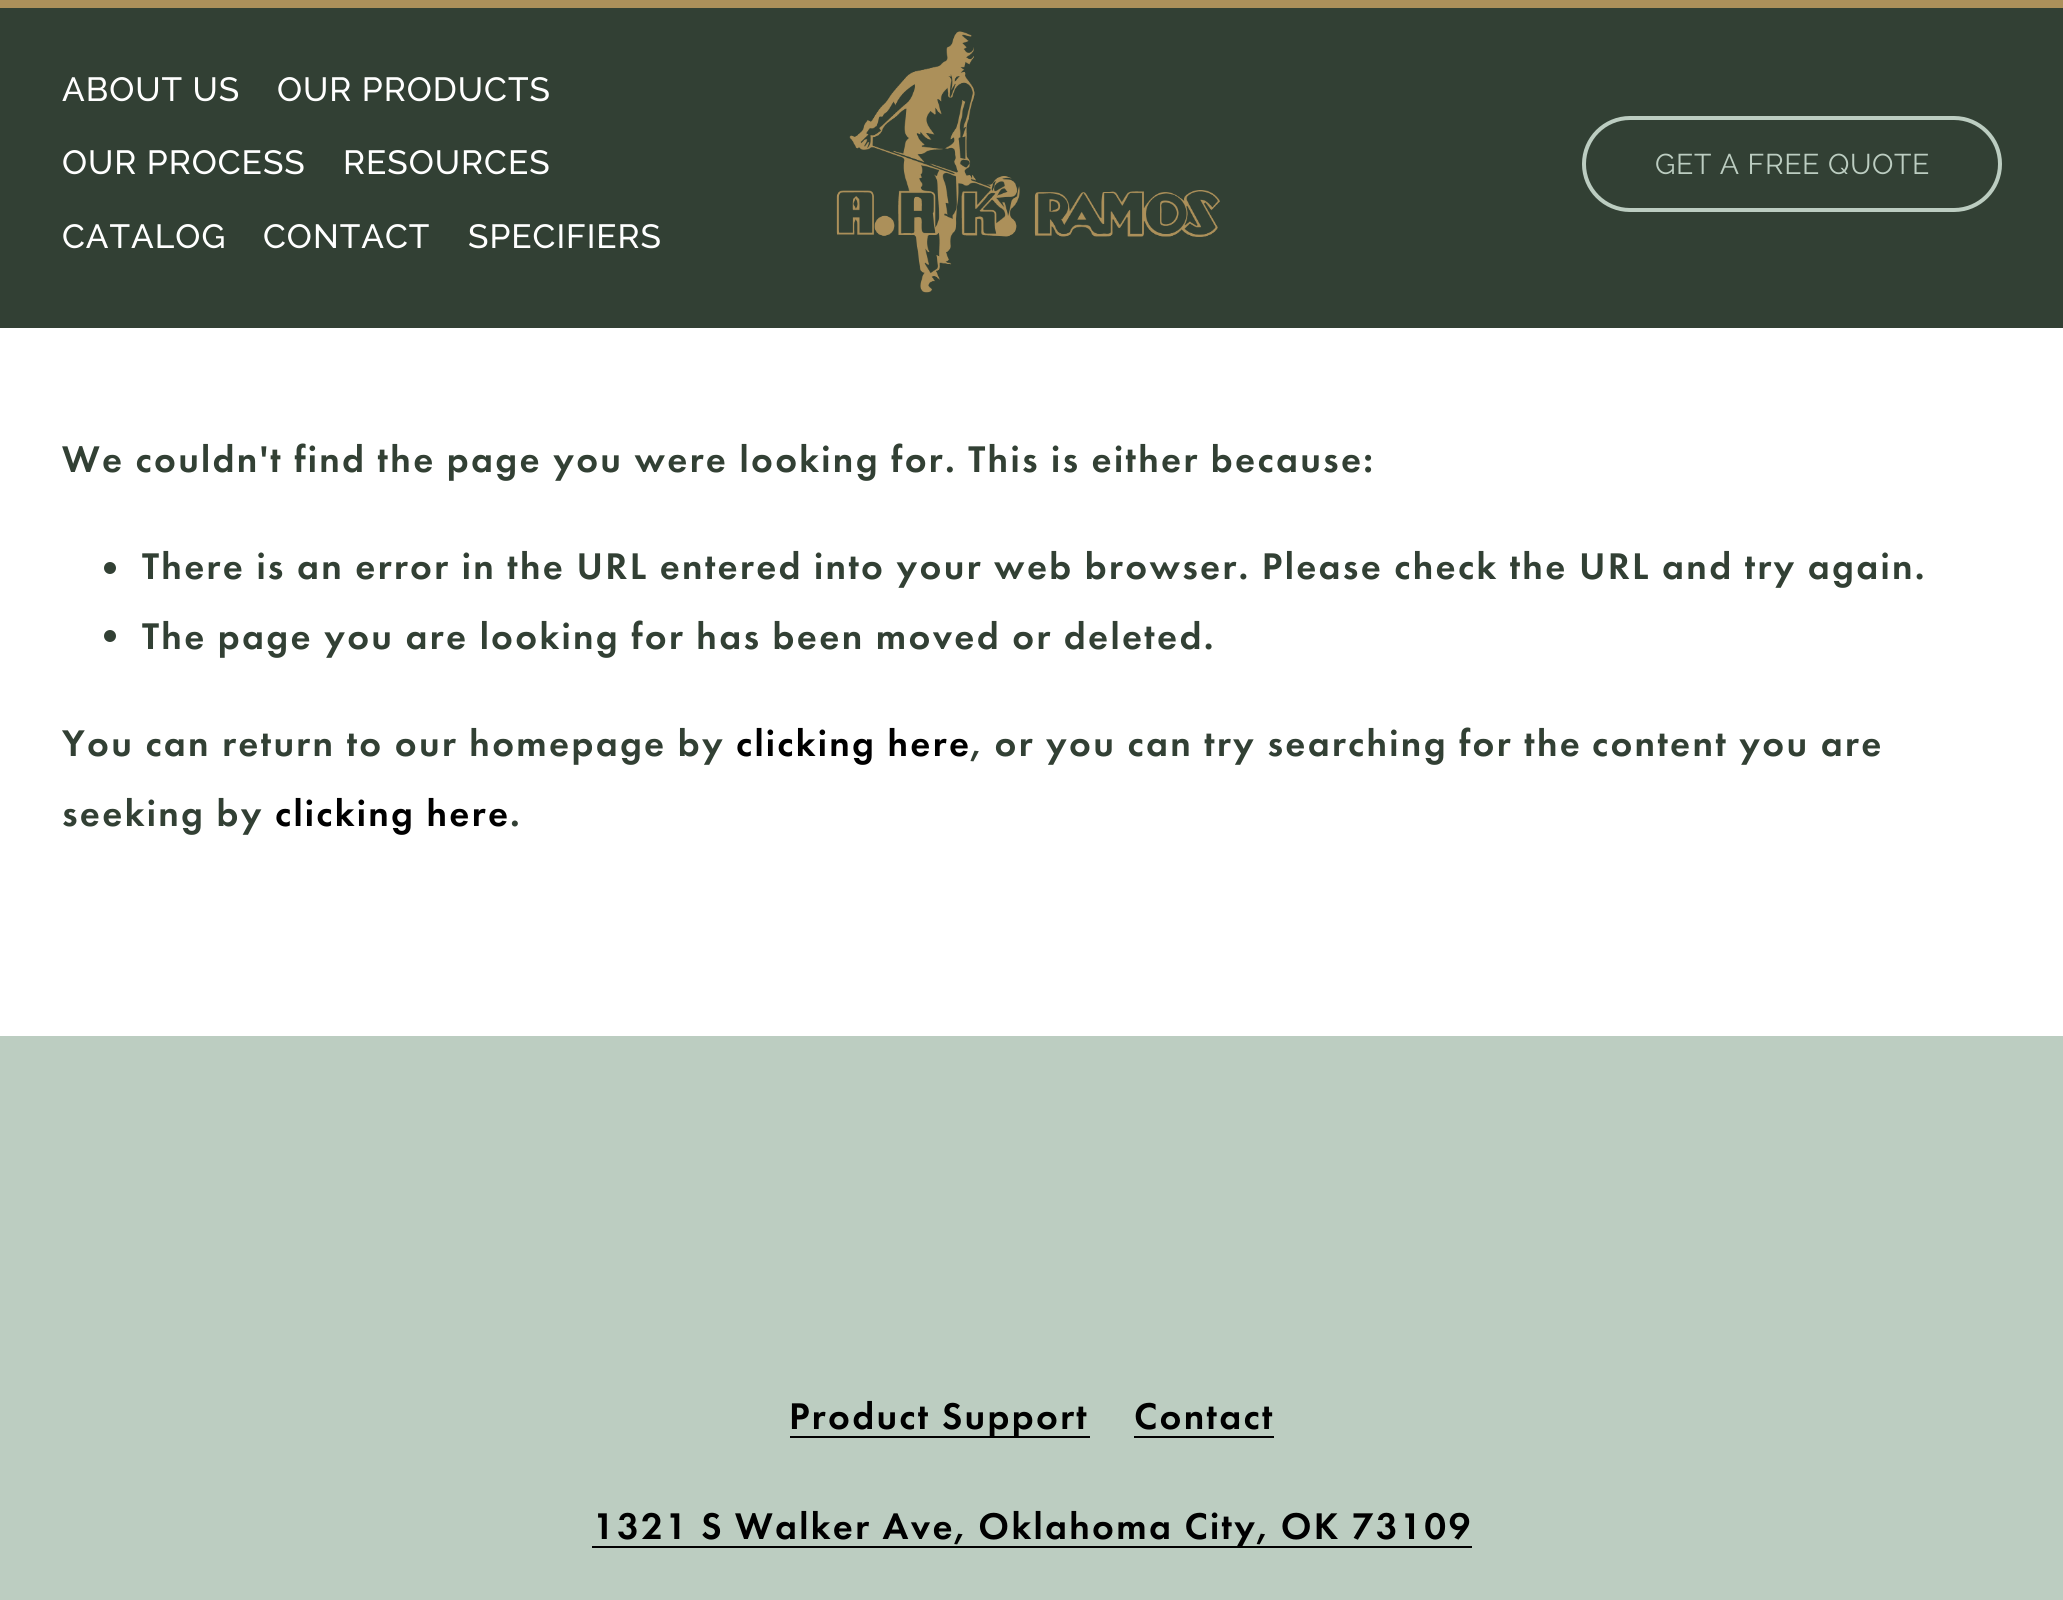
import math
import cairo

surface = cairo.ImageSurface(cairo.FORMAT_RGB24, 2063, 1600)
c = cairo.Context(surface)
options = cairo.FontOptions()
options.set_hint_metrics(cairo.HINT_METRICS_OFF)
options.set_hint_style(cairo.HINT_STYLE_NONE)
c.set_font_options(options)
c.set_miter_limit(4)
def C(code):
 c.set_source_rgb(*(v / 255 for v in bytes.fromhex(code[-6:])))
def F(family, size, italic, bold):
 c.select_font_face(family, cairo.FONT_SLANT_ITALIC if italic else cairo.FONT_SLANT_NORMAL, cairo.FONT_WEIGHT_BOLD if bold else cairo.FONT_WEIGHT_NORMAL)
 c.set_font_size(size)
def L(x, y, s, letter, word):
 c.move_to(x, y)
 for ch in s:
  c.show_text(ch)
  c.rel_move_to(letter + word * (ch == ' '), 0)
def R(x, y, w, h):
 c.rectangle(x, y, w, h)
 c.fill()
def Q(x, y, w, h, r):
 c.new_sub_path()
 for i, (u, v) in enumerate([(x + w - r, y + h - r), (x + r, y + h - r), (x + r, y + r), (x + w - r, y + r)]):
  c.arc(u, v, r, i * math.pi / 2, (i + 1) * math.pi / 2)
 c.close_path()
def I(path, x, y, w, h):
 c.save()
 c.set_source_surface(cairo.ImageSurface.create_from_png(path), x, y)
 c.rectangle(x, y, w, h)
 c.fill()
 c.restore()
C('ffffff')
c.paint()
C('324034')
R(0,8,2063,320)
C('ac905a')
R(0,0,2063,8)
F('Raleway Medium',33.5,0,0)
C('ffffff')
L(62,101,'ABOUT US',1,0)
L(277,101,'OUR PRODUCTS',1,0)
L(62,174,'OUR PROCESS',1,0)
L(343,174,'RESOURCES',1,0)
L(62,248,'CATALOG',1,0)
L(263,248,'CONTACT',1,0)
L(468,248,'SPECIFIERS',1,0)
I('1.png',836,31,384,262)
Q(1584,118,416,92,46)
C('bccdc1')
c.set_line_width(4)
c.stroke()
F('Raleway',28.5,0,0)
L(1655,174,'GET A FREE QUOTE',.6,0)
F('Futura PT Medium',38.5,0,0)
C('324034')
L(62,472,'We couldn\'t find the page you were looking for. This is either because:',2.3,0)
c.new_path()
c.arc(110,568,6,0,2 * math.pi)
c.fill()
L(142,579,'There is an error in the URL entered into your web browser. Please check the URL and try again.',2.3,0)
c.new_path()
c.arc(110,636,6,0,2 * math.pi)
c.fill()
L(142,649,'The page you are looking for has been moved or deleted.',2.3,0)
L(62,756,'You can return to our homepage by',2.3,0)
C('000000')
L(736,756,'clicking here',2.3,0)
C('324034')
L(971,756,', or you can try searching for the',2.3,0)
L(1592,756,'content you are',2.3,0)
L(62,826,'seeking by',2.3,0)
C('000000')
L(275,826,'clicking here',2.3,0)
C('324034')
L(510,826,'.',2.3,0)
C('bccdc1')
R(0,1036,2063,564)
C('000000')
R(790,1436,300,2)
L(789,1429,'Product Support',2.3,0)
L(1134,1429,'Contact',2.3,0)
R(1134,1436,140,2)
R(592,1546,880,2)
L(593,1539,'1321 S Walker Ave, Oklahoma City, OK 73109',2.3,0)
surface.write_to_png('o.png')
